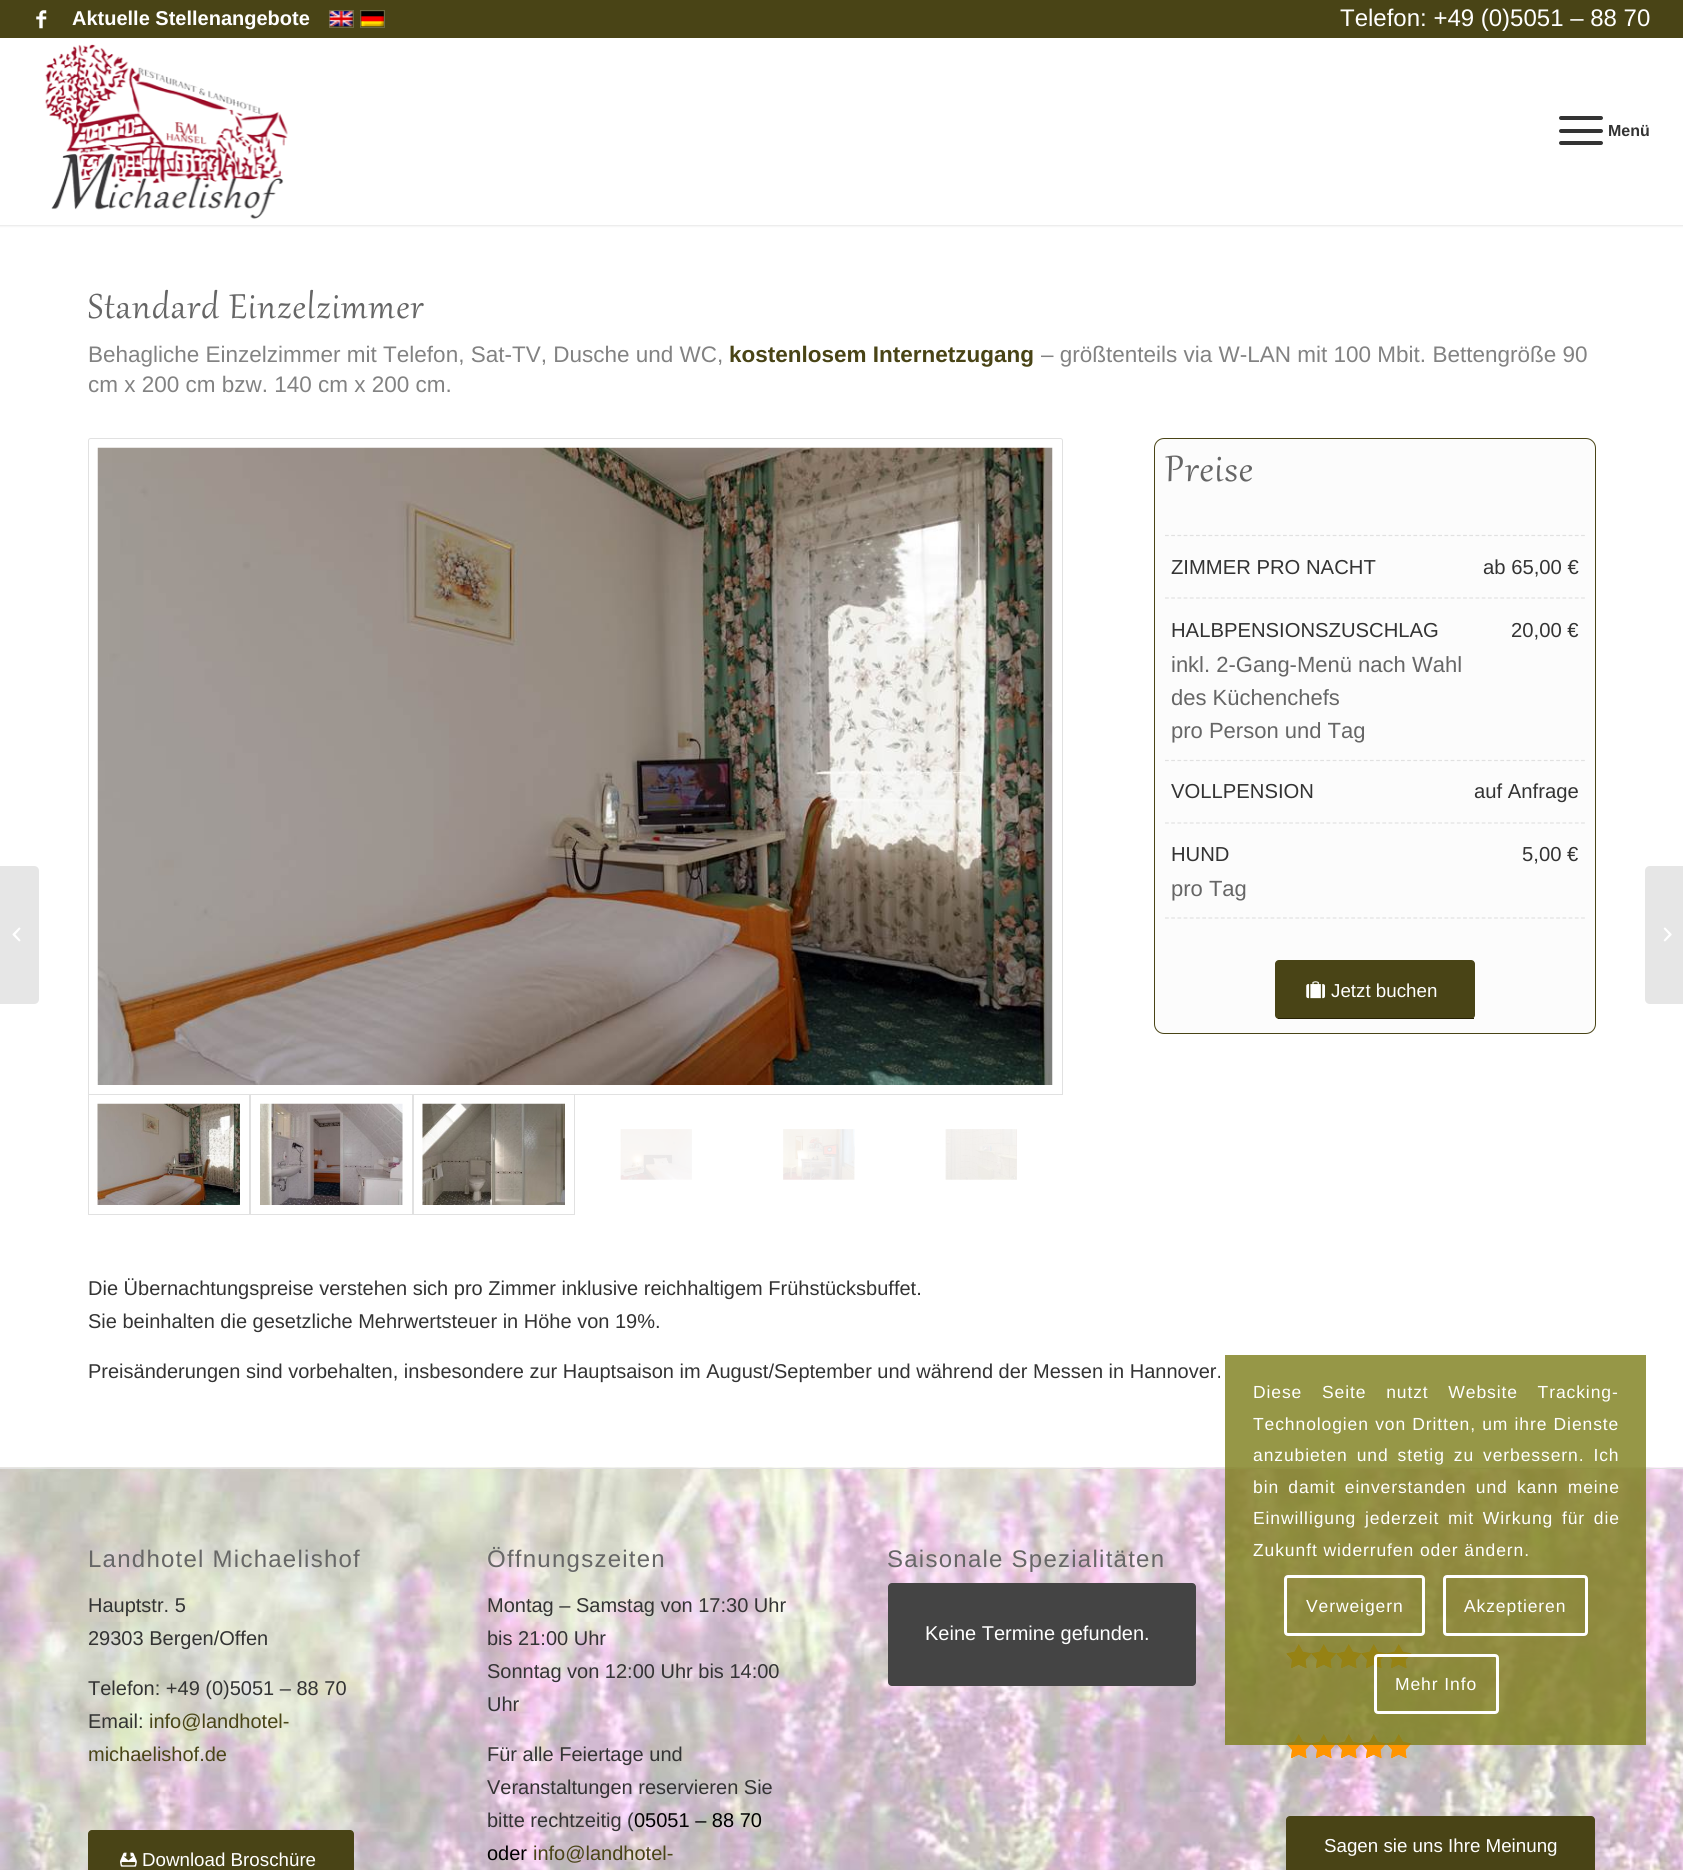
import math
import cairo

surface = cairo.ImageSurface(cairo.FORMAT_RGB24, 1683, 1870)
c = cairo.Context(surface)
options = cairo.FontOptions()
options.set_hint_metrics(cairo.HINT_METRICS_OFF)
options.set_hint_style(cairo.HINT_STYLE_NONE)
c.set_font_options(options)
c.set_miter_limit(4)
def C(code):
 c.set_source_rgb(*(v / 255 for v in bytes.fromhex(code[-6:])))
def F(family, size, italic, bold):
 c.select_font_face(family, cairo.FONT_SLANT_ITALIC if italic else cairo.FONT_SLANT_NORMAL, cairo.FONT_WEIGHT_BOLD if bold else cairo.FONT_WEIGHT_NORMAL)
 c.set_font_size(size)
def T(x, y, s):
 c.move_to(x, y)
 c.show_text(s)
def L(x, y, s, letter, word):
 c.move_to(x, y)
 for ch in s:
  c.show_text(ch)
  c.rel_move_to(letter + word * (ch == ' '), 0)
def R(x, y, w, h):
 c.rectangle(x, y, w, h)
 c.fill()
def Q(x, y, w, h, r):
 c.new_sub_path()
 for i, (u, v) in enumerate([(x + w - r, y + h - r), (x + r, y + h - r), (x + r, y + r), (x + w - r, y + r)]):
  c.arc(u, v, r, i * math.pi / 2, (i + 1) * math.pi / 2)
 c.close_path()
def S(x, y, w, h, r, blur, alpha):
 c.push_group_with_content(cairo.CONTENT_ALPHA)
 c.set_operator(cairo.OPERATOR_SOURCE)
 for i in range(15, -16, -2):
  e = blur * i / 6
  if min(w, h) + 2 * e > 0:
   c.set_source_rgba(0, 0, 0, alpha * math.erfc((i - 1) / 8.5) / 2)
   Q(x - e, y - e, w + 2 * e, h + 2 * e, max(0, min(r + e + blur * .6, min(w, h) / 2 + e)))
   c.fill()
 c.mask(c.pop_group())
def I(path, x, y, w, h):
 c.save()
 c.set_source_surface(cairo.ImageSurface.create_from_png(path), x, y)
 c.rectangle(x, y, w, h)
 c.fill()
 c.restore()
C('ffffff')
c.paint()
C('000000')
S(-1,-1,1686,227,0,1,.1)
C('494416')
R(0,0,1683,38)
I('1.png',36,10,11,19)
F('Liberation Sans',20,0,1)
C('ffffff')
T(72,25,'Aktuelle Stellenangebote')
c.rectangle(329.5,10.5,24,17)
C('6d6945')
c.set_line_width(1)
c.stroke()
I('2.png',329,11,24,16)
c.rectangle(360.5,10.5,24,17)
c.stroke()
I('3.png',360,11,24,16)
F('Liberation Sans',24,0,0)
C('ffffff')
T(1340,26,'Telefon: +49 (0)5051 – 88 70')
R(0,38,1683,187)
I('4.png',45,44,243,175)
C('333333')
Q(1559,129,44,4,2)
c.fill()
Q(1559,116,44,4,2)
c.fill()
Q(1559,141,44,4,2)
c.fill()
F('Liberation Sans',16,0,1)
T(1608,136,'Menü')
C('e6e6e6')
c.new_path()
c.move_to(0,866)
c.line_to(34,866)
c.curve_to(37,866,39,868,39,871)
c.line_to(39,999)
c.curve_to(39,1002,37,1004,34,1004)
c.line_to(0,1004)
c.close_path()
c.fill()
I('5.png',12,927,9,15)
F('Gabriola',42.5,0,0)
C('666666')
L(88,318,'Standard Einzelzimmer',1.25,0)
F('Liberation Sans',22.5,0,0)
C('828282')
T(88,362,'Behagliche Einzelzimmer mit Telefon, Sat-TV, Dusche und WC,')
F('Liberation Sans',22.5,0,1)
C('494416')
T(729,362,'kostenlosem Internetzugang')
F('Liberation Sans',22.5,0,0)
C('828282')
T(1041,362,'– größtenteils via W-LAN mit 100 Mbit. Bettengröße 90')
T(88,392,'cm x 200 cm bzw. 140 cm x 200 cm.')
c.new_path()
c.move_to(90.5,438.5)
c.line_to(1060.5,438.5)
c.curve_to(1061.5,438.5,1062.5,439.5,1062.5,440.5)
c.line_to(1062.5,1094.5)
c.line_to(88.5,1094.5)
c.line_to(88.5,440.5)
c.curve_to(88.5,439.5,89.5,438.5,90.5,438.5)
c.close_path()
C('e1e1e1')
c.stroke()
I('6.png',97,447,956,638)
c.rectangle(88.5,1094.5,161,120)
c.stroke()
I('7.png',97,1103,143,102)
c.rectangle(250.5,1094.5,162,120)
c.stroke()
I('8.png',260,1103,143,102)
c.rectangle(413.5,1094.5,161,120)
c.stroke()
I('9.png',422,1103,143,102)
I('10.png',620,1129,72,51)
I('11.png',783,1129,72,51)
I('12.png',945,1129,72,51)
C('fcfcfc')
Q(1154.5,438.5,441,595,9.5)
c.fill_preserve()
C('494416')
c.stroke()
F('Gabriola',45,0,0)
C('666666')
L(1165,481,'Preise',1.25,0)
c.new_path()
c.move_to(1165,535.5)
c.line_to(1585,535.5)
C('e1e1e1')
c.set_line_width(1.2)
c.set_dash([3.75,2.46])
c.stroke()
c.new_path()
c.move_to(1165,598)
c.line_to(1585,598)
c.stroke()
F('Liberation Sans',20.25,0,0)
C('333333')
T(1171,574,'ZIMMER PRO NACHT')
T(1483,574,'ab 65,00 €')
c.new_path()
c.move_to(1165,760.5)
c.line_to(1585,760.5)
C('e1e1e1')
c.stroke()
C('333333')
T(1171,637,'HALBPENSIONSZUSCHLAG')
T(1511,637,'20,00 €')
F('Liberation Sans',22,0,0)
C('666666')
T(1171,672,'inkl. 2-Gang-Menü nach Wahl')
T(1171,705,'des Küchenchefs')
T(1171,738,'pro Person und Tag')
c.new_path()
c.move_to(1165,823)
c.line_to(1585,823)
C('e1e1e1')
c.stroke()
F('Liberation Sans',20.25,0,0)
C('333333')
T(1171,798,'VOLLPENSION')
T(1474,798,'auf Anfrage')
c.new_path()
c.move_to(1165,918)
c.line_to(1585,918)
C('e1e1e1')
c.stroke()
C('333333')
T(1171,861,'HUND')
T(1522,861,'5,00 €')
F('Liberation Sans',22,0,0)
C('666666')
T(1171,896,'pro Tag')
C('494416')
Q(1275,960,200,59,4)
c.fill()
C('272204')
R(1278,1018,196,1)
I('13.png',1306,981,19,18)
F('Liberation Sans',18.75,0,0)
C('ffffff')
T(1331,997,'Jetzt buchen')
F('Liberation Sans',20,0,0)
C('333333')
T(88,1295,'Die Übernachtungspreise verstehen sich pro Zimmer inklusive reichhaltigem Frühstücksbuffet.')
T(88,1328,'Sie beinhalten die gesetzliche Mehrwertsteuer in Höhe von 19%.')
T(88,1378,'Preisänderungen sind vorbehalten, insbesondere zur Hauptsaison im August/September und während der Messen in Hannover.')
I('14.png',0,1467,1683,403)
C('e1e1e1')
R(0,1468,1683,1)
F('Liberation Sans',24,0,0)
C('666666')
L(88,1567,'Landhotel Michaelishof',1.25,0)
F('Liberation Sans',20,0,0)
C('333333')
T(88,1612,'Hauptstr. 5')
T(88,1645,'29303 Bergen/Offen')
T(88,1695,'Telefon: +49 (0)5051 – 88 70')
T(88,1728,'Email:')
C('494416')
T(149,1728,'info@landhotel-')
T(88,1761,'michaelishof.de')
Q(88,1830,266,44,4)
c.fill()
I('15.png',120,1852,17,15)
F('Liberation Sans',18.75,0,0)
C('ffffff')
T(142,1866,'Download Broschüre')
F('Liberation Sans',24,0,0)
C('666666')
L(487,1567,'Öffnungszeiten',1.25,0)
F('Liberation Sans',20,0,0)
C('333333')
T(487,1612,'Montag – Samstag von 17:30 Uhr')
T(487,1645,'bis 21:00 Uhr')
T(487,1678,'Sonntag von 12:00 Uhr bis 14:00')
T(487,1711,'Uhr')
T(487,1761,'Für alle Feiertage und')
T(487,1794,'Veranstaltungen reservieren Sie')
T(487,1827,'bitte rechtzeitig (')
C('000000')
T(634,1827,'05051 – 88 70')
T(487,1860,'oder')
C('494416')
T(533,1860,'info@landhotel-')
F('Liberation Sans',24,0,0)
C('666666')
L(887,1567,'Saisonale Spezialitäten',1.25,0)
C('444444')
Q(888,1583,308,103,4)
c.fill()
F('Liberation Sans',20,0,0)
C('ffffff')
T(925,1640,'Keine Termine gefunden.')
I('16.png',1286,1644,126,24)
I('17.png',1286,1644,126,24)
I('18.png',1286,1734,126,24)
I('19.png',1286,1734,126,24)
C('494416')
Q(1286,1816,309,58,4)
c.fill()
F('Liberation Sans',18.75,0,0)
C('ffffff')
T(1324,1852,'Sagen sie uns Ihre Meinung')
C('e6e6e6')
c.new_path()
c.move_to(1650,866)
c.line_to(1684,866)
c.line_to(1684,1004)
c.line_to(1650,1004)
c.curve_to(1647,1004,1645,1002,1645,999)
c.line_to(1645,871)
c.curve_to(1645,868,1647,866,1650,866)
c.close_path()
c.fill()
I('20.png',1663,927,9,15)
c.set_source_rgba(0.486,0.49,0.102,0.8)
R(1225,1355,421,390)
F('Liberation Sans',17.5,0,0)
C('ffffff')
L(1253,1398,'Diese Seite nutzt Website Tracking-',.9,14)
L(1253,1430,'Technologien von Dritten, um ihre Dienste',.9,.5)
L(1253,1461,'anzubieten und stetig zu verbessern. Ich',.9,3.25)
L(1253,1493,'bin damit einverstanden und kann meine',.9,3.5)
L(1253,1524,'Einwilligung jederzeit mit Wirkung für die',.9,3)
L(1253,1556,'Zukunft widerrufen oder ändern.',.9,0)
Q(1285.5,1576.5,138,58,2.5)
c.set_line_width(3)
c.set_dash([])
c.stroke()
L(1306,1612,'Verweigern',.9,0)
Q(1444.5,1576.5,142,58,2.5)
c.stroke()
L(1464,1612,'Akzeptieren',.9,0)
Q(1375.5,1655.5,122,57,2.5)
c.stroke()
L(1395,1690,'Mehr Info',.9,0)
surface.write_to_png('o.png')
